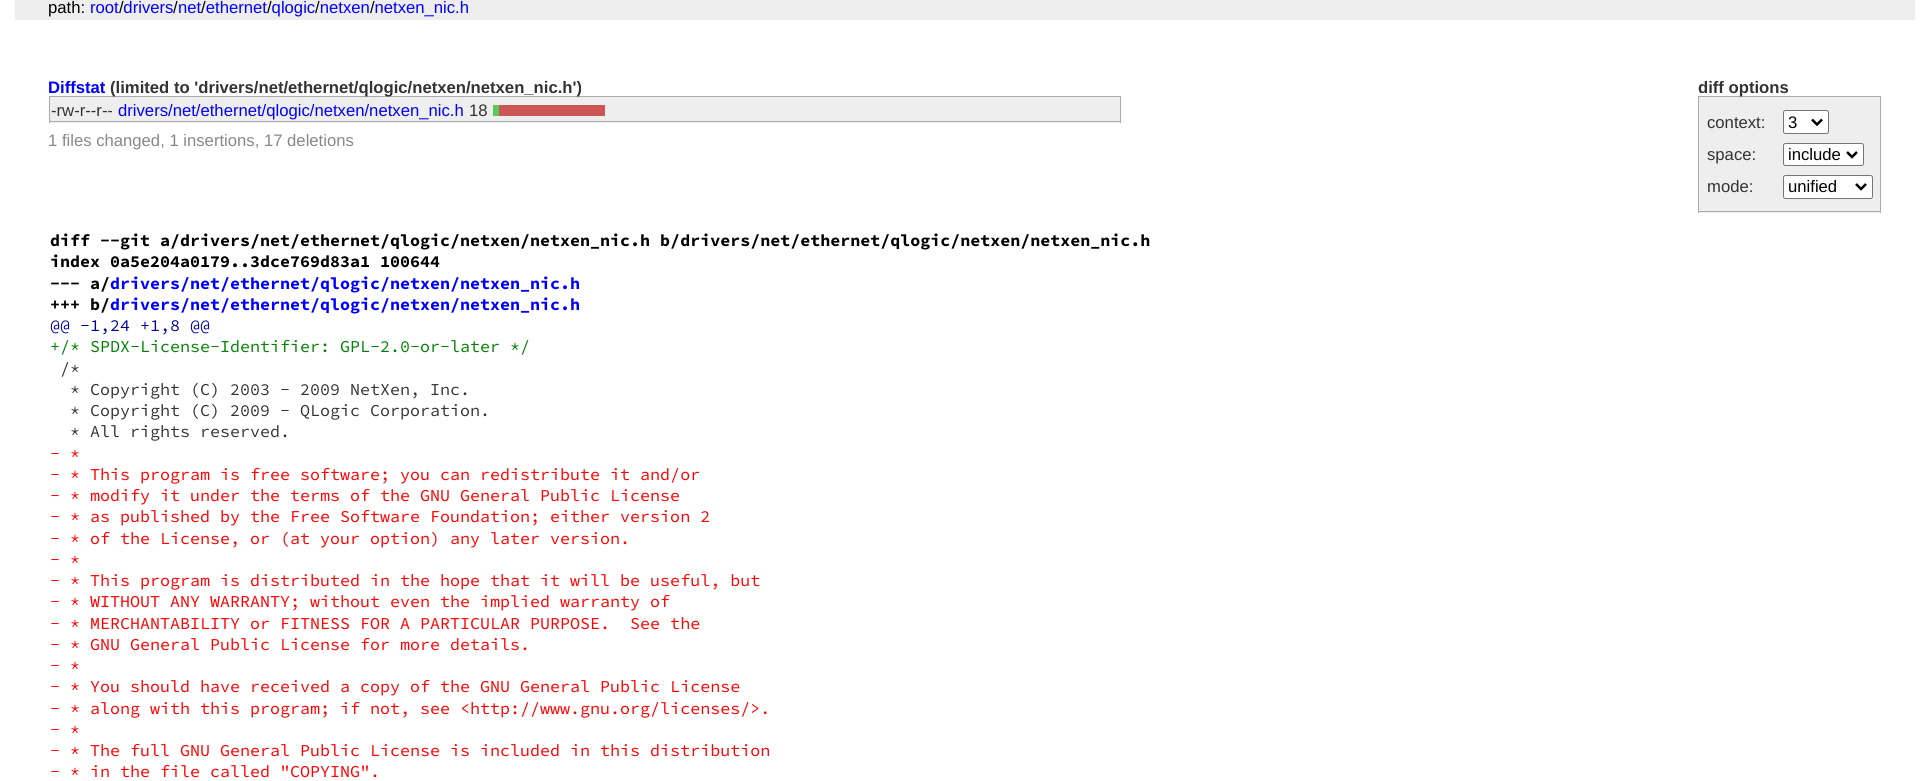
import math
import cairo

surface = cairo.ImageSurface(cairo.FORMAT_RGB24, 1930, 781)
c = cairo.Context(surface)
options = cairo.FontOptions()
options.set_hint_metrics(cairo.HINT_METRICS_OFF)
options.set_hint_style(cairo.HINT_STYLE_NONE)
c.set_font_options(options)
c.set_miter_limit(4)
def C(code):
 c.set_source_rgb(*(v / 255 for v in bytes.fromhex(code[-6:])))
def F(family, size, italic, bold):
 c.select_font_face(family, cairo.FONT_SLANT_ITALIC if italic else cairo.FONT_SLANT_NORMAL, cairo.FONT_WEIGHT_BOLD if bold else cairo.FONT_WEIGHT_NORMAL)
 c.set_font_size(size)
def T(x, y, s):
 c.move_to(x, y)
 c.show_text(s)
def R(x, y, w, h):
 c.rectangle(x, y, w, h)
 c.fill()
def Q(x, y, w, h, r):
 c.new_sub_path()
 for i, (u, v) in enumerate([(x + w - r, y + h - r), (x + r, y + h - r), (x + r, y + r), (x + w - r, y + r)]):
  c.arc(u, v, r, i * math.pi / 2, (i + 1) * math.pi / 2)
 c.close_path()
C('ffffff')
c.paint()
C('eeeeee')
R(15,0,1900,20)
F('Liberation Sans',16.67,0,0)
C('000000')
T(48,13,'path:')
C('0000ff')
T(90,13,'root drivers net ethernet qlogic netxen netxen_nic.h')
C('000000')
T(119,13,'/')
T(173,13,'/')
T(201,13,'/')
T(267,13,'/')
T(315,13,'/')
T(370,13,'/')
F('Liberation Sans',16.67,0,1)
C('0000ff')
T(48,93,'Diffstat')
C('aaaaaa')
R(49,96,1072,1)
C('333333')
T(110,93,'(limited to \'drivers/net/ethernet/qlogic/netxen/netxen_nic.h\')')
C('aaaaaa')
R(1698,96,183,1)
C('eeeeee')
R(1699,97,181,116)
C('aaaaaa')
R(1880,96,1,117)
R(1698,211,183,1)
R(1698,96,1,117)
C('333333')
T(1698,93,'diff options')
F('Liberation Sans',16.67,0,0)
T(1707,128,'context:')
C('ffffff')
Q(1783.5,110.5,45,23,2)
c.fill_preserve()
C('767676')
c.set_line_width(1)
c.stroke()
c.new_path()
c.move_to(1812,119.5)
c.line_to(1817,124.5)
c.line_to(1822,119.5)
C('000000')
c.set_line_width(2.5)
c.stroke()
T(1788,128,'3')
C('333333')
T(1707,160,'space:')
C('ffffff')
Q(1783.5,143.5,80,22,2)
c.fill_preserve()
C('767676')
c.set_line_width(1)
c.stroke()
c.new_path()
c.move_to(1847,152)
c.line_to(1852,157)
c.line_to(1857,152)
C('000000')
c.set_line_width(2.5)
c.stroke()
T(1788,160,'include')
C('333333')
T(1707,192,'mode:')
C('ffffff')
Q(1783.5,175.5,89,23,2)
c.fill_preserve()
C('767676')
c.set_line_width(1)
c.stroke()
c.new_path()
c.move_to(1856,184)
c.line_to(1861,189)
c.line_to(1866,184)
C('000000')
c.set_line_width(2.5)
c.stroke()
T(1788,192,'unified')
C('eeeeee')
R(50,97,1070,26)
C('aaaaaa')
R(1120,96,1,27)
R(49,121,1072,1)
R(49,96,1,27)
C('333333')
T(51,116,'-rw-r--r--')
C('0000ff')
T(118,116,'drivers/net/ethernet/qlogic/netxen/netxen_nic.h')
C('333333')
T(469,116,'18')
C('55cc55')
R(493,105,6,11)
C('cc5555')
R(499,105,106,11)
C('888888')
T(48,146,'1 files changed, 1 insertions, 17 deletions')
F('Source Code Pro',16.67,0,1)
C('000000')
T(50,246,'diff --git a/drivers/net/ethernet/qlogic/netxen/netxen_nic.h b/drivers/net/ethernet/qlogic/netxen/netxen_nic.h')
T(50,267,'index 0a5e204a0179..3dce769d83a1 100644')
T(50,289,'--- a/')
C('0000ff')
T(110,289,'drivers/net/ethernet/qlogic/netxen/netxen_nic.h')
C('000000')
T(50,310,'+++ b/')
C('0000ff')
T(110,310,'drivers/net/ethernet/qlogic/netxen/netxen_nic.h')
F('Source Code Pro',16.67,0,0)
C('000099')
T(50,331,'@@ -1,24 +1,8 @@')
C('008000')
T(50,352,'+/* SPDX-License-Identifier: GPL-2.0-or-later */')
C('333333')
T(60,374,'/*')
T(70,395,'* Copyright (C) 2003 - 2009 NetXen, Inc.')
T(70,416,'* Copyright (C) 2009 - QLogic Corporation.')
T(70,437,'* All rights reserved.')
C('ff0000')
T(50,459,'- *')
T(50,480,'- * This program is free software; you can redistribute it and/or')
T(50,501,'- * modify it under the terms of the GNU General Public License')
T(50,522,'- * as published by the Free Software Foundation; either version 2')
T(50,544,'- * of the License, or (at your option) any later version.')
T(50,565,'- *')
T(50,586,'- * This program is distributed in the hope that it will be useful, but')
T(50,607,'- * WITHOUT ANY WARRANTY; without even the implied warranty of')
T(50,629,'- * MERCHANTABILITY or FITNESS FOR A PARTICULAR PURPOSE.  See the')
T(50,650,'- * GNU General Public License for more details.')
T(50,671,'- *')
T(50,692,'- * You should have received a copy of the GNU General Public License')
T(50,714,'- * along with this program; if not, see <http://www.gnu.org/licenses/>.')
T(50,735,'- *')
T(50,756,'- * The full GNU General Public License is included in this distribution')
T(50,777,'- * in the file called "COPYING".')
surface.write_to_png('o.png')
